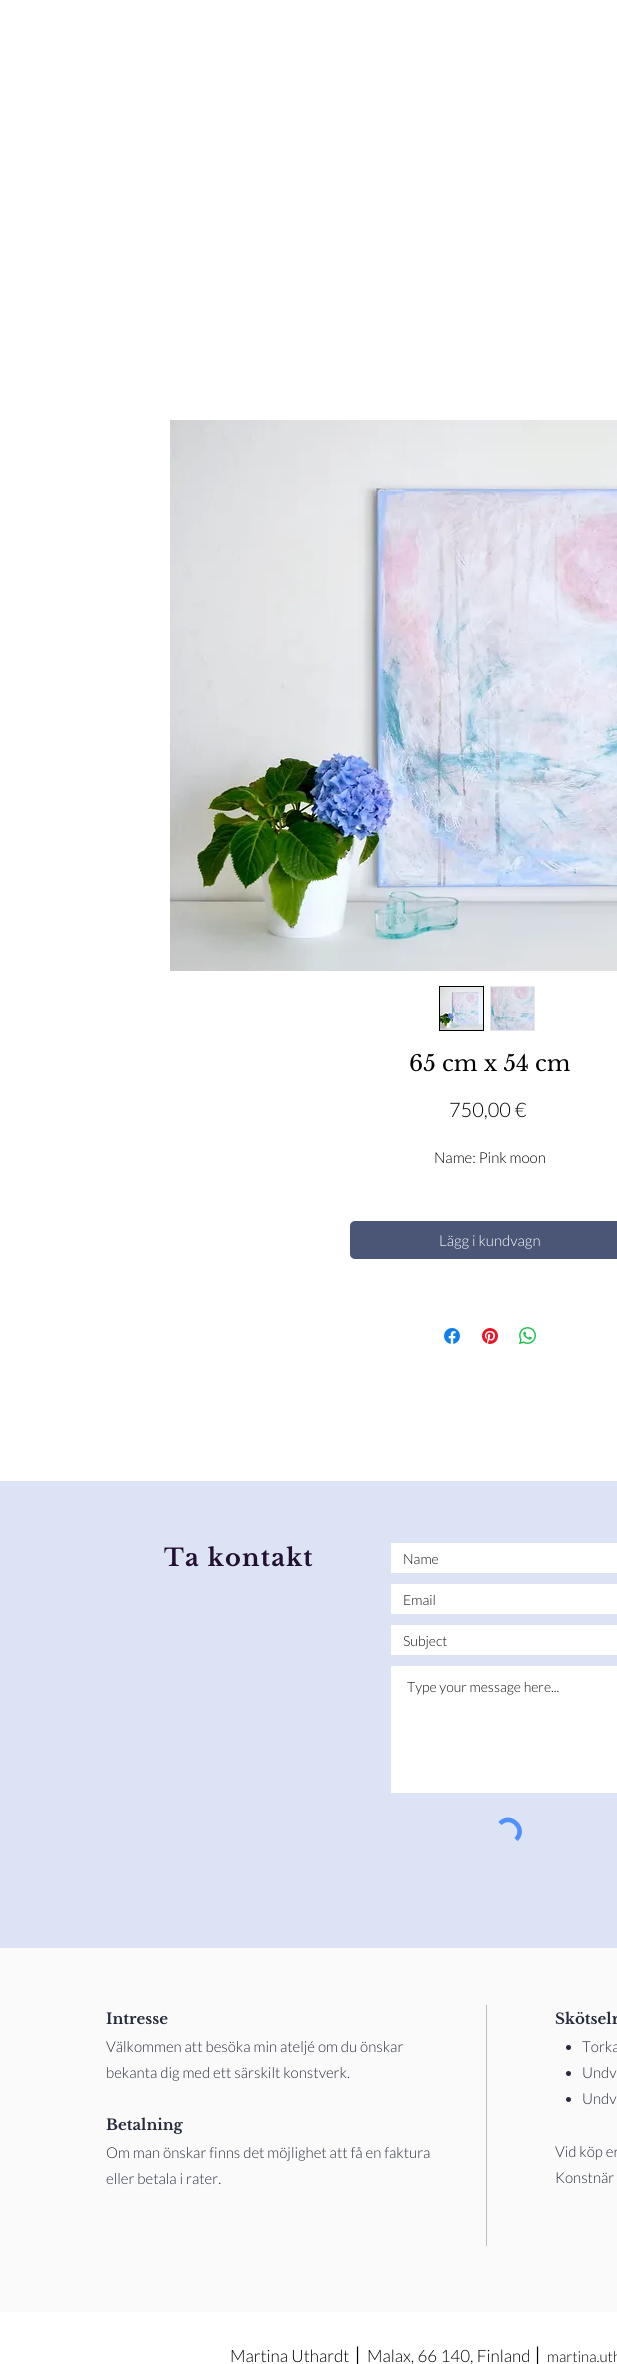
import math
import cairo

surface = cairo.ImageSurface(cairo.FORMAT_RGB24, 617, 2364)
c = cairo.Context(surface)
options = cairo.FontOptions()
options.set_hint_metrics(cairo.HINT_METRICS_OFF)
options.set_hint_style(cairo.HINT_STYLE_NONE)
c.set_font_options(options)
c.set_miter_limit(4)
def C(code):
 c.set_source_rgb(*(v / 255 for v in bytes.fromhex(code[-6:])))
def F(family, size, italic, bold):
 c.select_font_face(family, cairo.FONT_SLANT_ITALIC if italic else cairo.FONT_SLANT_NORMAL, cairo.FONT_WEIGHT_BOLD if bold else cairo.FONT_WEIGHT_NORMAL)
 c.set_font_size(size)
def T(x, y, s):
 c.move_to(x, y)
 c.show_text(s)
def L(x, y, s, letter, word):
 c.move_to(x, y)
 for ch in s:
  c.show_text(ch)
  c.rel_move_to(letter + word * (ch == ' '), 0)
def R(x, y, w, h):
 c.rectangle(x, y, w, h)
 c.fill()
def Q(x, y, w, h, r):
 c.new_sub_path()
 for i, (u, v) in enumerate([(x + w - r, y + h - r), (x + r, y + h - r), (x + r, y + r), (x + w - r, y + r)]):
  c.arc(u, v, r, i * math.pi / 2, (i + 1) * math.pi / 2)
 c.close_path()
def I(path, x, y, w, h):
 c.save()
 c.set_source_surface(cairo.ImageSurface.create_from_png(path), x, y)
 c.rectangle(x, y, w, h)
 c.fill()
 c.restore()
C('ffffff')
c.paint()
I('1.png',170,420,447,551)
c.rectangle(439.5,986.5,44,44)
C('000000')
c.set_line_width(1)
c.stroke()
I('2.png',440,987,43,43)
C('e8e6e6')
R(490,986,45,45)
I('3.png',491,987,43,43)
F('Libre Baskerville',22,0,0)
C('000000')
T(409,1071,'65 cm x 54 cm')
F('Lato Light',20,0,0)
T(449,1117,'750,00 €')
F('Lato Light',15,0,0)
T(434,1163,'Name: Pink moon')
C('4b5676')
Q(350,1221,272,38,5)
c.fill()
C('ffffff')
T(439,1246,'Lägg i kundvagn')
I('4.png',444,1328,16,16)
I('5.png',482,1328,16,16)
I('6.png',519,1327,17,17)
C('dce3f5')
R(0,1481,617,467)
F('Libre Baskerville',24,0,1)
C('221133')
L(164,1566,'Ta kontakt',1.25,0)
C('ffffff')
R(391,1543,226,30)
F('Lato Light',14,0,0)
C('0f0f0f')
T(403,1564,'Name')
C('ffffff')
R(391,1584,226,30)
C('0f0f0f')
T(403,1605,'Email')
C('ffffff')
R(391,1625,226,30)
C('0f0f0f')
T(403,1646,'Subject')
C('ffffff')
R(391,1666,226,127)
C('0f0f0f')
T(407,1692,'Type your message here...')
c.new_path()
c.move_to(500,1823.5)
c.curve_to(510.5,1812.5,527,1829,516,1839.5)
C('4d90fe')
c.set_line_width(4.6)
c.stroke()
C('fafafa')
R(0,1948,617,364)
F('Libre Baskerville',15,0,1)
C('262b3b')
T(106,2024,'Intresse')
F('Lato Light',15,0,0)
T(106,2052,'Välkommen att besöka min ateljé om du önskar')
T(106,2078,'bekanta dig med ett särskilt konstverk.')
F('Libre Baskerville',15,0,1)
T(106,2130,'Betalning')
F('Lato Light',15,0,0)
T(106,2158,'Om man önskar finns det möjlighet att få en faktura')
T(106,2184,'eller betala i rater.')
C('babcc1')
R(486,2005,1,241)
F('Libre Baskerville',15,0,1)
C('262b3b')
T(555,2024,'Skötselr')
c.new_path()
c.arc(568.5,2047.5,2.5,0,2 * math.pi)
c.fill()
F('Lato Light',15,0,0)
T(582,2052,'Torka')
c.new_path()
c.arc(568.5,2073.5,2.5,0,2 * math.pi)
c.fill()
T(582,2078,'Undv')
c.new_path()
c.arc(568.5,2099.5,2.5,0,2 * math.pi)
c.fill()
T(582,2104,'Undv')
T(555,2157,'Vid köp er')
T(555,2183,'Konstnär')
F('Lato Light',17,0,0)
C('000000')
T(230,2362,'Martina Uthardt')
F('Liberation Sans',17,0,0)
T(353,2362,'│')
F('Lato Light',17,0,0)
T(367,2362,'Malax, 66 140, Finland')
F('Liberation Sans',17,0,0)
T(533,2362,'│')
F('Lato Light',15,0,0)
T(547,2362,'martina.uth')
surface.write_to_png('o.png')
